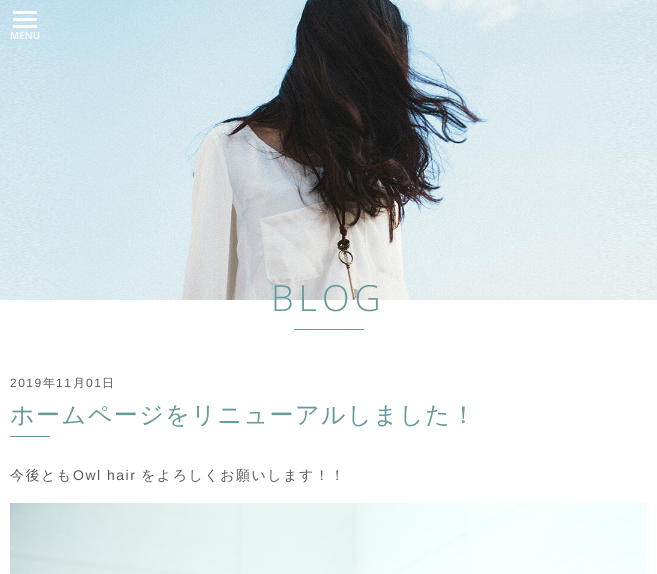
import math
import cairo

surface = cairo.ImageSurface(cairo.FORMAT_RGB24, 657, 574)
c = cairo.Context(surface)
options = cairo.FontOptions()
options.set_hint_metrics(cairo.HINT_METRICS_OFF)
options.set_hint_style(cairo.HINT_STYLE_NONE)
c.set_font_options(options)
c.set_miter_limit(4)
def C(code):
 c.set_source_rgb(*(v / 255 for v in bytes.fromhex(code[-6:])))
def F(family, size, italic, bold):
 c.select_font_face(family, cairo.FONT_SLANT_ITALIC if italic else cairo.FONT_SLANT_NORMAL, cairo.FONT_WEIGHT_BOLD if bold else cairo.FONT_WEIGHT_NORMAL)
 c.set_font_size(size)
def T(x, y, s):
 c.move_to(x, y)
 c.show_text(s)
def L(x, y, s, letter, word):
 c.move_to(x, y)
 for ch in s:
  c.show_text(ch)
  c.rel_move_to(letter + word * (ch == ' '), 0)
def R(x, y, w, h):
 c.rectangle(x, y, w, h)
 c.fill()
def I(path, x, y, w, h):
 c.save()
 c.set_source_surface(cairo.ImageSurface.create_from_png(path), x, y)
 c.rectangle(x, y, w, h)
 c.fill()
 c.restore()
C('ffffff')
c.paint()
I('1.png',0,0,657,300)
C('ffffff')
R(13,18,24,3)
R(13,11,24,3)
R(13,25,24,3)
F('Open Sans SemiBold',10,0,0)
T(10,39,'MENU')
F('Open Sans Light',36,0,0)
C('669999')
L(271,311,'BLOG',5,0)
R(294,329,70,1)
F('Liberation Sans',12,0,0)
C('575959')
L(10,387,'2019',1.5,0)
F('WenQuanYi Zen Hei Medium',12,0,0)
L(43,387,'年',1.5,0)
F('Liberation Sans',12,0,0)
L(56,387,'11',1.5,0)
F('WenQuanYi Zen Hei Medium',12,0,0)
L(73,387,'月',1.5,0)
F('Liberation Sans',12,0,0)
L(86,387,'01',1.5,0)
F('WenQuanYi Zen Hei Medium',12,0,0)
L(102,387,'日',1.5,0)
F('WenQuanYi Zen Hei Medium',24,0,0)
C('669999')
L(10,423,'ホームページをリニューアルしました！',1.5,0)
R(10,436,40,1)
F('WenQuanYi Zen Hei Medium',14,0,0)
C('575959')
L(10,480,'今後とも',1.5,0)
F('Liberation Sans',14,0,0)
L(73,480,'Owl hair',1.5,0)
F('WenQuanYi Zen Hei Medium',14,0,0)
L(141,480,'をよろしくお願いします！！',1.5,0)
I('2.png',10,503,637,71)
surface.write_to_png('o.png')
